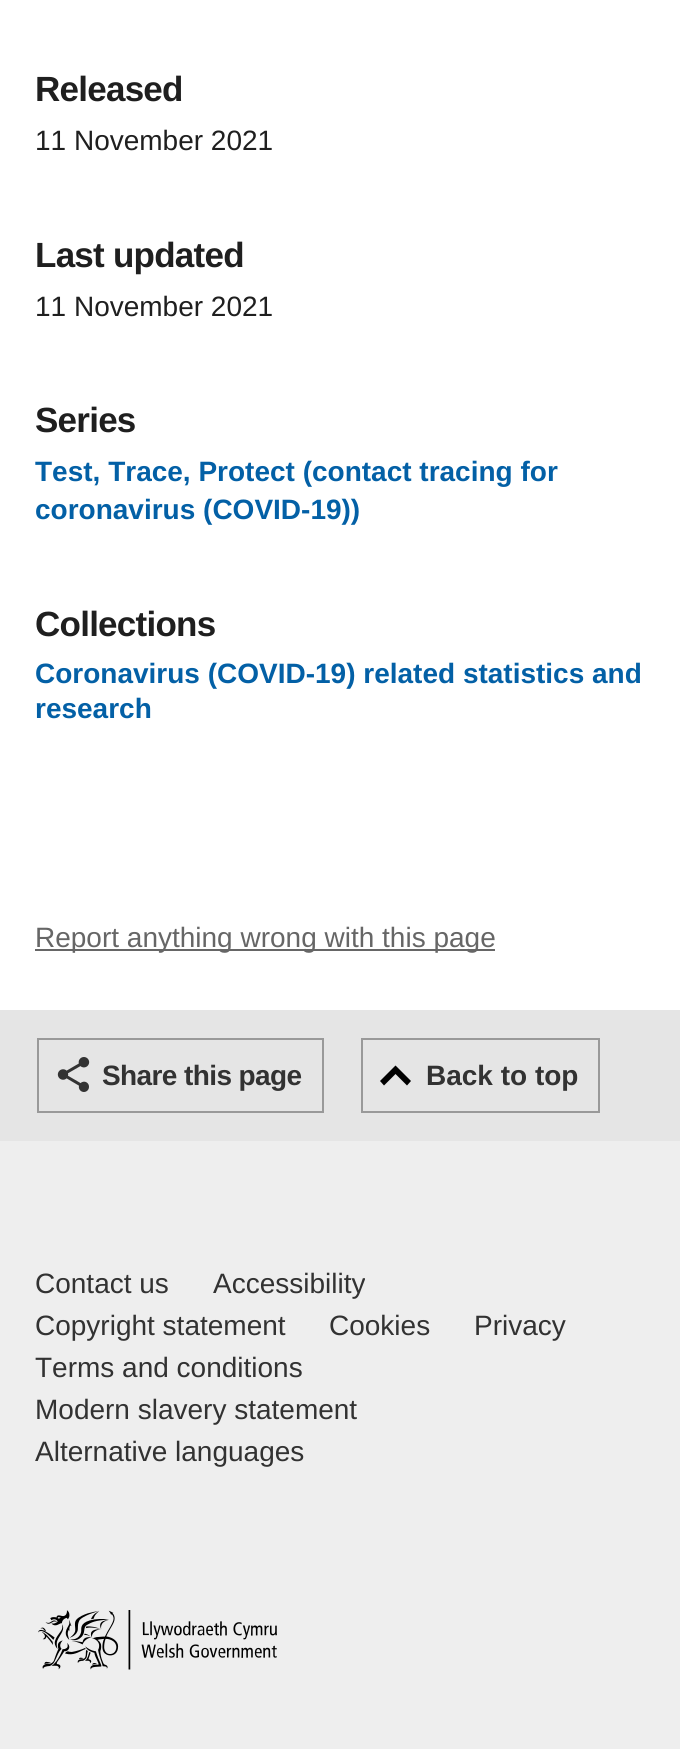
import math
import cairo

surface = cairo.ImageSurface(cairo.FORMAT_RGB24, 680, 1749)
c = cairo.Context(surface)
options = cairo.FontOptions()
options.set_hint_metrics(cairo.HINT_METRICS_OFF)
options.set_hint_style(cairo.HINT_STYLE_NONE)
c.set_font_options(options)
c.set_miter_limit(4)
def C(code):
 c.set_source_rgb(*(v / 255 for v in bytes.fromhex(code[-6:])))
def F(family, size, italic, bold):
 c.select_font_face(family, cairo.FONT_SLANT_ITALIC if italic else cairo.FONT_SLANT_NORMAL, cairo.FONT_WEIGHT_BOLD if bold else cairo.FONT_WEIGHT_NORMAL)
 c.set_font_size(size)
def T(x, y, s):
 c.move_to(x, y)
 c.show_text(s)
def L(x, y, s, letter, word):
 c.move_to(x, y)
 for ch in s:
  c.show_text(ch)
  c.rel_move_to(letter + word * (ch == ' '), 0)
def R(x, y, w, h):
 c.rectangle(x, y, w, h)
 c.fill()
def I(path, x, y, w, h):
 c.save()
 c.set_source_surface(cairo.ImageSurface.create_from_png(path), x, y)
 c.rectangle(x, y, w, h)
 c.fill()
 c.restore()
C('eeeeee')
c.paint()
C('ffffff')
R(0,0,680,1010)
F('Liberation Sans',35,0,1)
C('1f1f1f')
L(35,101,'Released',-.75,0)
F('Liberation Sans',28,0,0)
T(35,150,'11 November 2021')
F('Liberation Sans',35,0,1)
L(35,267,'Last updated',-.75,0)
F('Liberation Sans',28,0,0)
T(35,316,'11 November 2021')
F('Liberation Sans',35,0,1)
L(35,432,'Series',-.75,0)
F('Liberation Sans',28,0,1)
C('0360a6')
T(35,481,'Test, Trace, Protect (contact tracing for')
T(35,519,'coronavirus (COVID-19))')
F('Liberation Sans',35,0,1)
C('1f1f1f')
L(35,636,'Collections',-.75,0)
F('Liberation Sans',28,0,1)
C('0360a6')
T(35,683,'Coronavirus (COVID-19) related statistics and')
T(35,718,'research')
C('666666')
R(35,949,460,2)
F('Liberation Sans',28,0,0)
T(35,947,'Report anything wrong with this page')
C('e5e5e5')
R(0,1010,680,131)
I('1.png',57,1057,33,35)
c.rectangle(38,1039,285,73)
C('999999')
c.stroke()
F('Liberation Sans',28,0,1)
C('323232')
L(102,1085,'Share this page',-.6,0)
C('000000')
c.new_path()
c.move_to(411,1081)
c.line_to(395.5,1065.5)
c.line_to(380,1081)
c.line_to(384,1085.5)
c.line_to(395.5,1074)
c.line_to(407,1085.5)
c.close_path()
c.fill()
c.rectangle(362,1039,237,73)
C('999999')
c.stroke()
C('323232')
T(426,1085,'Back to top')
F('Liberation Sans',28,0,0)
T(35,1293,'Contact us')
T(213,1293,'Accessibility')
T(35,1335,'Copyright statement')
T(329,1335,'Cookies')
T(474,1335,'Privacy')
T(35,1377,'Terms and conditions')
T(35,1419,'Modern slavery statement')
T(35,1461,'Alternative languages')
I('2.png',38,1610,239,60)
surface.write_to_png('o.png')
